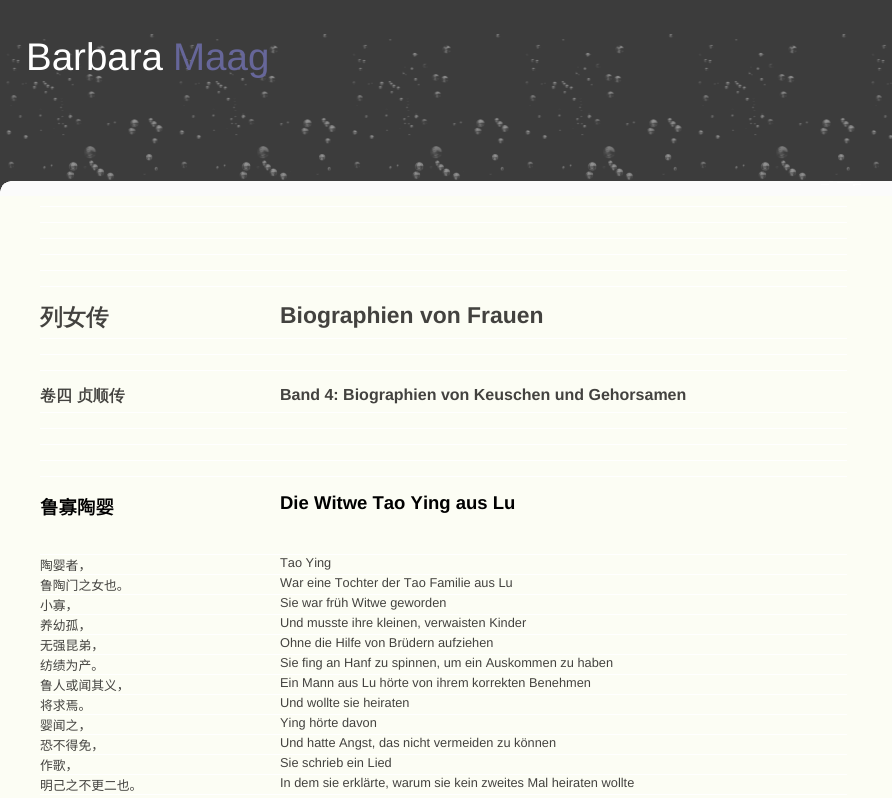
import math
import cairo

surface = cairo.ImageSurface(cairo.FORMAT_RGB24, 892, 798)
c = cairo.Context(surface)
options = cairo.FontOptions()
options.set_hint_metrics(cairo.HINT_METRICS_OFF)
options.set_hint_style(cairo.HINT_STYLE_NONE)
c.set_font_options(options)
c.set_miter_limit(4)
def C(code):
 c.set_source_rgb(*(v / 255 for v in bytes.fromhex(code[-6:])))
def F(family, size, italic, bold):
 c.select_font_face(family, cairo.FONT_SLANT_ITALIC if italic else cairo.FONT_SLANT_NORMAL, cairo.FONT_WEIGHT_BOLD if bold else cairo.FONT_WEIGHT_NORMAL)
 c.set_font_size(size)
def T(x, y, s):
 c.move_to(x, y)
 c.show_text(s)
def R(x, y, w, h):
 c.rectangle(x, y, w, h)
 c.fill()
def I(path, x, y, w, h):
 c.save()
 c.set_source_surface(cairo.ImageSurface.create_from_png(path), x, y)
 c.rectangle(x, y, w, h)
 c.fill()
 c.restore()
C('ffffff')
c.paint()
I('1.png',0,0,892,189)
F('Liberation Sans',38.5,0,0)
C('ffffff')
T(26,70,'Barbara')
C('666699')
T(173,70,'Maag')
I('2.png',0,181,892,15)
C('fcfdf4')
R(0,196,892,602)
C('ffffff')
R(40,206,807,1)
R(40,222,807,1)
R(40,238,807,1)
R(40,254,807,1)
R(40,270,807,1)
R(40,286,807,1)
F('WenQuanYi Zen Hei',22.9,0,1)
C('43423f')
T(40,325,'列女传')
F('Liberation Sans',22.9,0,1)
T(280,323,'Biographien von Frauen')
C('ffffff')
R(40,338,807,1)
R(40,354,807,1)
R(40,370,807,1)
F('WenQuanYi Zen Hei',16,0,1)
C('43423f')
T(40,401,'卷四 贞顺传')
F('Liberation Sans',16,0,1)
T(280,400,'Band 4: Biographien von Keuschen und Gehorsamen')
C('ffffff')
R(40,412,807,1)
R(40,428,807,1)
R(40,444,807,1)
R(40,460,807,1)
R(40,476,807,1)
F('Noto Sans CJK SC',18.5,0,1)
C('000000')
T(40,514,'鲁寡陶婴')
F('Liberation Sans',18.5,0,1)
T(280,509,'Die Witwe Tao Ying aus Lu')
C('ffffff')
R(40,554,807,1)
F('Noto Sans CJK SC',12.8,0,0)
C('43423f')
T(40,570,'陶婴者，')
F('Liberation Sans',12.8,0,0)
T(280,567,'Tao Ying')
C('ffffff')
R(40,574,807,1)
F('Noto Sans CJK SC',12.8,0,0)
C('43423f')
T(40,590,'鲁陶门之女也。')
F('Liberation Sans',12.8,0,0)
T(280,587,'War eine Tochter der Tao Familie aus Lu')
C('ffffff')
R(40,594,807,1)
F('Noto Sans CJK SC',12.8,0,0)
C('43423f')
T(40,610,'小寡，')
F('Liberation Sans',12.8,0,0)
T(280,607,'Sie war früh Witwe geworden')
C('ffffff')
R(40,614,807,1)
F('Noto Sans CJK SC',12.8,0,0)
C('43423f')
T(40,630,'养幼孤，')
F('Liberation Sans',12.8,0,0)
T(280,627,'Und musste ihre kleinen, verwaisten Kinder')
C('ffffff')
R(40,634,807,1)
F('Noto Sans CJK SC',12.8,0,0)
C('43423f')
T(40,650,'无强昆弟，')
F('Liberation Sans',12.8,0,0)
T(280,647,'Ohne die Hilfe von Brüdern aufziehen')
C('ffffff')
R(40,654,807,1)
F('Noto Sans CJK SC',12.8,0,0)
C('43423f')
T(40,670,'纺绩为产。')
F('Liberation Sans',12.8,0,0)
T(280,667,'Sie fing an Hanf zu spinnen, um ein Auskommen zu haben')
C('ffffff')
R(40,674,807,1)
F('Noto Sans CJK SC',12.8,0,0)
C('43423f')
T(40,690,'鲁人或闻其义，')
F('Liberation Sans',12.8,0,0)
T(280,687,'Ein Mann aus Lu hörte von ihrem korrekten Benehmen')
C('ffffff')
R(40,694,807,1)
F('Noto Sans CJK SC',12.8,0,0)
C('43423f')
T(40,710,'将求焉。')
F('Liberation Sans',12.8,0,0)
T(280,707,'Und wollte sie heiraten')
C('ffffff')
R(40,714,807,1)
F('Noto Sans CJK SC',12.8,0,0)
C('43423f')
T(40,730,'婴闻之，')
F('Liberation Sans',12.8,0,0)
T(280,727,'Ying hörte davon')
C('ffffff')
R(40,734,807,1)
F('Noto Sans CJK SC',12.8,0,0)
C('43423f')
T(40,750,'恐不得免，')
F('Liberation Sans',12.8,0,0)
T(280,747,'Und hatte Angst, das nicht vermeiden zu können')
C('ffffff')
R(40,754,807,1)
F('Noto Sans CJK SC',12.8,0,0)
C('43423f')
T(40,770,'作歌，')
F('Liberation Sans',12.8,0,0)
T(280,767,'Sie schrieb ein Lied')
C('ffffff')
R(40,774,807,1)
F('Noto Sans CJK SC',12.8,0,0)
C('43423f')
T(40,790,'明己之不更二也。')
F('Liberation Sans',12.8,0,0)
T(280,787,'In dem sie erklärte, warum sie kein zweites Mal heiraten wollte')
C('ffffff')
R(40,794,807,1)
surface.write_to_png('o.png')
